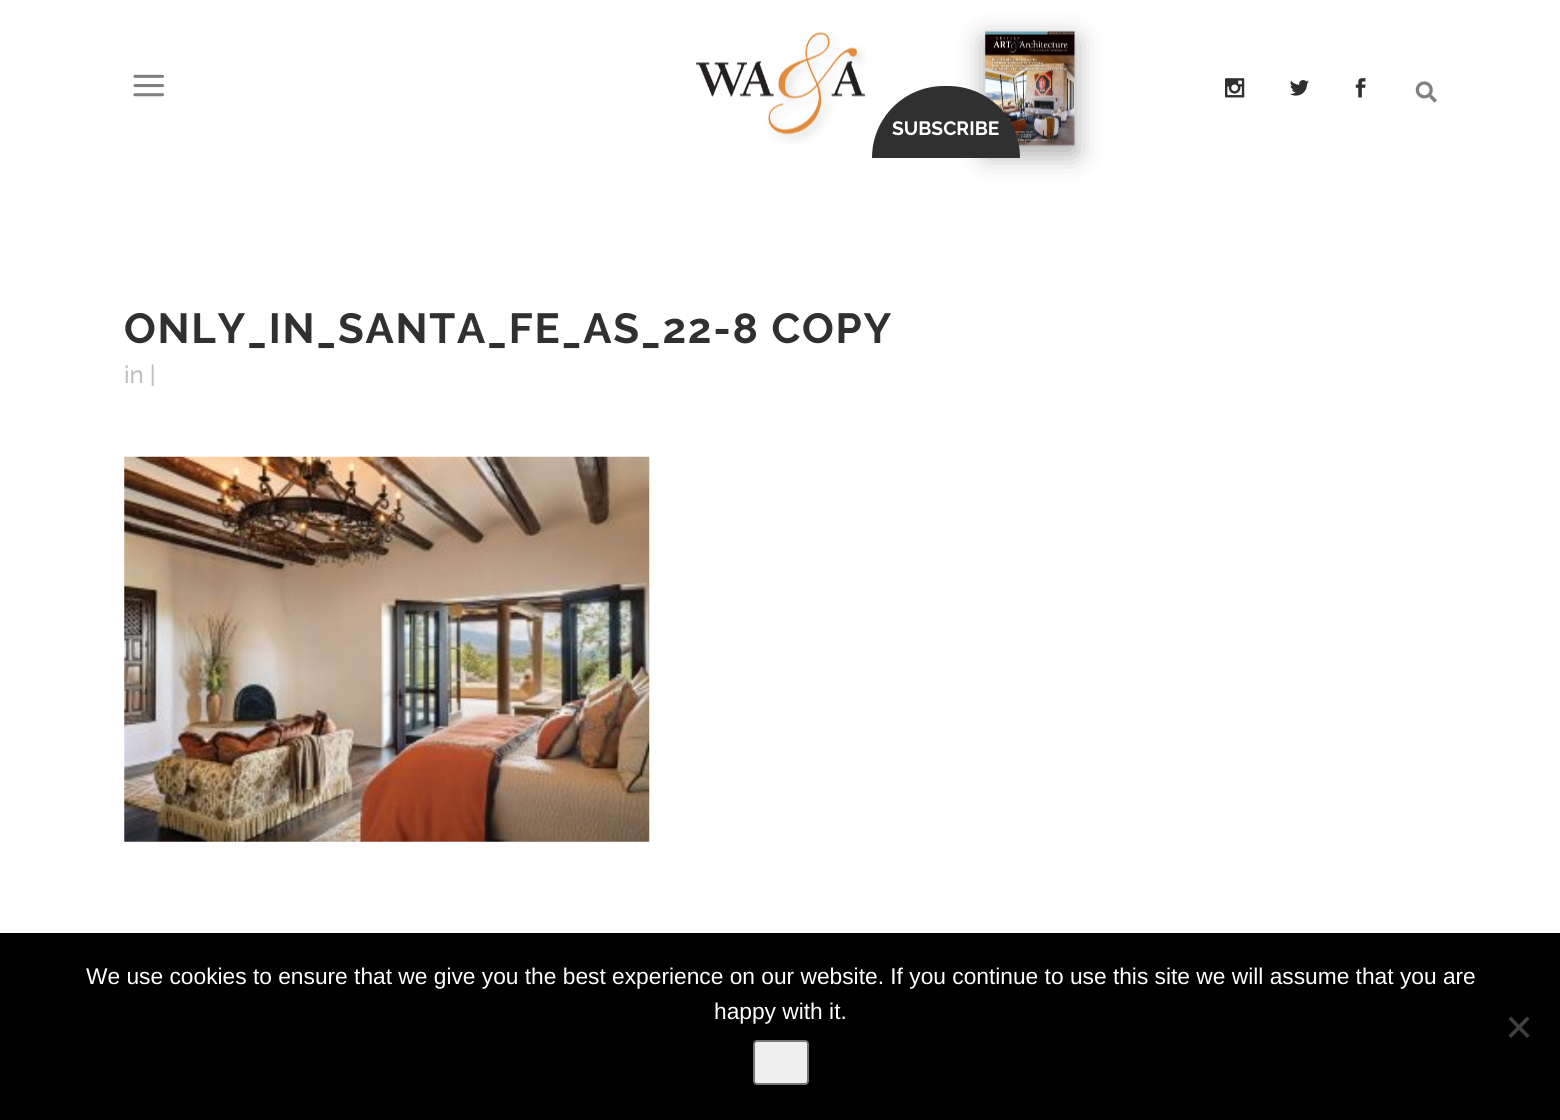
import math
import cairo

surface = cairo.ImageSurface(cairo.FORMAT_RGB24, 1560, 1120)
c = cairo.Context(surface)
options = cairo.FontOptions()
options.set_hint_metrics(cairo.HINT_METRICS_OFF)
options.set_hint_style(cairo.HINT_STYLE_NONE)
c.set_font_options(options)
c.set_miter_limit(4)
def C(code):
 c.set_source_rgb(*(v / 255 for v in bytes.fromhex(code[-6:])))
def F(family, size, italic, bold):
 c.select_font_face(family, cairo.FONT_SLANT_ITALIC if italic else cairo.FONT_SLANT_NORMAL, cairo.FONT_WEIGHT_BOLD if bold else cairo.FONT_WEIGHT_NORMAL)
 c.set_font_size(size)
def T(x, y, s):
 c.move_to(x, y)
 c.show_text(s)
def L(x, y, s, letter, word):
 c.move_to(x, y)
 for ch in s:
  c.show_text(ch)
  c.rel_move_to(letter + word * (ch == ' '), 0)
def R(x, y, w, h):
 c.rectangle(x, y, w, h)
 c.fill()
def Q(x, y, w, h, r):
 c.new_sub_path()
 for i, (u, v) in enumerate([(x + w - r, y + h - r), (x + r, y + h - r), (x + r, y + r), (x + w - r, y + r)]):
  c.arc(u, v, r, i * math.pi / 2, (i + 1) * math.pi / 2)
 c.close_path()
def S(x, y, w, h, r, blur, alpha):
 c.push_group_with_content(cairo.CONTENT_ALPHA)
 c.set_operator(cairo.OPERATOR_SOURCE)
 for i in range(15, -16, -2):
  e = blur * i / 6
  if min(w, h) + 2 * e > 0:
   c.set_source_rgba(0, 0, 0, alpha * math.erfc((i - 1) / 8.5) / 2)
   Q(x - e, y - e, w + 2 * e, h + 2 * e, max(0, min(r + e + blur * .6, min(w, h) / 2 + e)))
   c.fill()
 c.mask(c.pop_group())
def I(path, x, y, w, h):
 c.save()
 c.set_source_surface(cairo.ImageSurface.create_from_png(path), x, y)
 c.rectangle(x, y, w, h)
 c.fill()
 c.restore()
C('ffffff')
c.paint()
I('1.png',133,74,31,23)
I('2.png',696,32,170,112)
I('3.png',1415,81,22,22)
I('4.png',1225,78,20,20)
I('5.png',1290,80,19,16)
I('6.png',1355,78,11,20)
C('000000')
S(985,40,90,114,0,13,.35)
I('7.png',985,31,90,115)
C('303030')
c.new_path()
c.move_to(944,86)
c.line_to(948,86)
c.curve_to(988,86,1020,118,1020,158)
c.line_to(872,158)
c.curve_to(872,118,904,86,944,86)
c.close_path()
c.fill()
F('Raleway',19.25,0,1)
C('ffffff')
T(892,135,'SUBSCRIBE')
F('Raleway',42,0,1)
C('303030')
L(124,343,'ONLY_IN_SANTA_FE_AS_22-8 COPY',1.75,0)
F('Raleway Medium',24,0,0)
C('bebebe')
T(124,383,'in |')
I('8.png',124,456,526,386)
C('000000')
R(0,933,1560,187)
F('Liberation Sans',22.75,0,0)
C('ffffff')
T(86,984,'We use cookies to ensure that we give you the best experience on our website. If you continue to use this site we will assume that you are')
T(714,1019,'happy with it.')
C('404040')
c.new_path()
c.move_to(1527,1016.5)
c.line_to(1529.5,1019)
c.line_to(1511,1038)
c.line_to(1508.5,1035.5)
c.close_path()
c.fill()
c.new_path()
c.move_to(1508.5,1019)
c.line_to(1511,1016.5)
c.line_to(1529.5,1035.5)
c.line_to(1527,1038)
c.close_path()
c.fill()
C('efefef')
Q(754,1041,54,43,3)
c.fill_preserve()
C('767676')
c.stroke()
surface.write_to_png('o.png')
